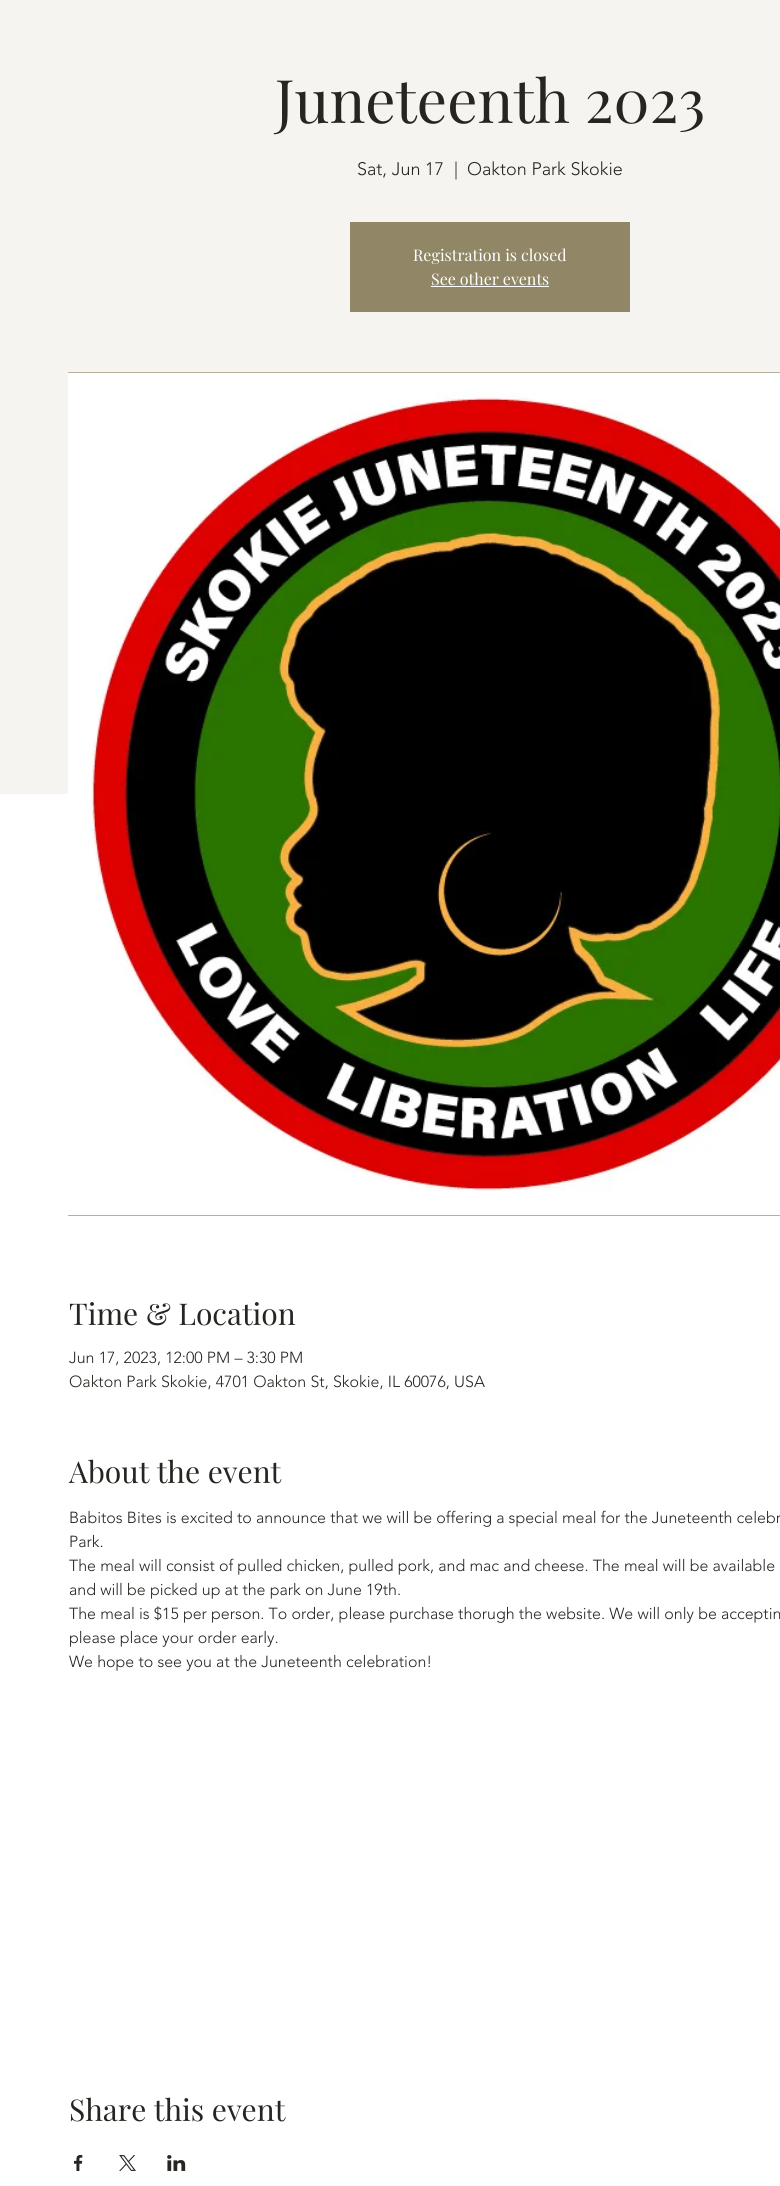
import math
import cairo

surface = cairo.ImageSurface(cairo.FORMAT_RGB24, 780, 2186)
c = cairo.Context(surface)
options = cairo.FontOptions()
options.set_hint_metrics(cairo.HINT_METRICS_OFF)
options.set_hint_style(cairo.HINT_STYLE_NONE)
c.set_font_options(options)
c.set_miter_limit(4)
def C(code):
 c.set_source_rgb(*(v / 255 for v in bytes.fromhex(code[-6:])))
def F(family, size, italic, bold):
 c.select_font_face(family, cairo.FONT_SLANT_ITALIC if italic else cairo.FONT_SLANT_NORMAL, cairo.FONT_WEIGHT_BOLD if bold else cairo.FONT_WEIGHT_NORMAL)
 c.set_font_size(size)
def T(x, y, s):
 c.move_to(x, y)
 c.show_text(s)
def R(x, y, w, h):
 c.rectangle(x, y, w, h)
 c.fill()
def I(path, x, y, w, h):
 c.save()
 c.set_source_surface(cairo.ImageSurface.create_from_png(path), x, y)
 c.rectangle(x, y, w, h)
 c.fill()
 c.restore()
C('ffffff')
c.paint()
C('f5f4f1')
R(0,0,780,794)
F('Playfair Display',60,0,0)
C('272521')
T(275,123,'Juneteenth 2023')
F('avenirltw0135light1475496 Light',18,0,0)
T(357,175,'Sat, Jun 17')
T(454,175,'|')
T(467,175,'Oakton Park Skokie')
C('918766')
R(350,222,280,90)
F('Playfair Display',16,0,0)
C('ffffff')
T(413,261,'Registration is closed')
T(431,285,'See other events')
R(431,286,118,1)
C('b6af9b')
R(68,372,712,844)
I('1.png',68,373,712,842)
F('Playfair Display',30,0,0)
C('272521')
T(69,1325,'Time & Location')
F('avenirltw0135light1475496 Light',16,0,0)
T(69,1363,'Jun 17, 2023, 12:00 PM – 3:30 PM')
T(69,1387,'Oakton Park Skokie, 4701 Oakton St, Skokie, IL 60076, USA')
F('Playfair Display',30,0,0)
T(69,1483,'About the event')
F('avenirltw0135light1475496 Light',16,0,0)
T(69,1523,'Babitos Bites is excited to announce that we will be offering a special meal for the Juneteenth celebr')
T(69,1547,'Park.')
T(69,1571,'The meal will consist of pulled chicken, pulled pork, and mac and cheese. The meal will be available')
T(69,1595,'and will be picked up at the park on June 19th.')
T(69,1619,'The meal is $15 per person. To order, please purchase thorugh the website. We will only be acceptin')
T(69,1643,'please place your order early.')
T(69,1667,'We hope to see you at the Juneteenth celebration!')
F('Playfair Display',30,0,0)
T(69,2121,'Share this event')
I('2.png',74,2155,9,16)
I('3.png',119,2155,17,16)
I('4.png',167,2155,19,16)
surface.write_to_png('o.png')
